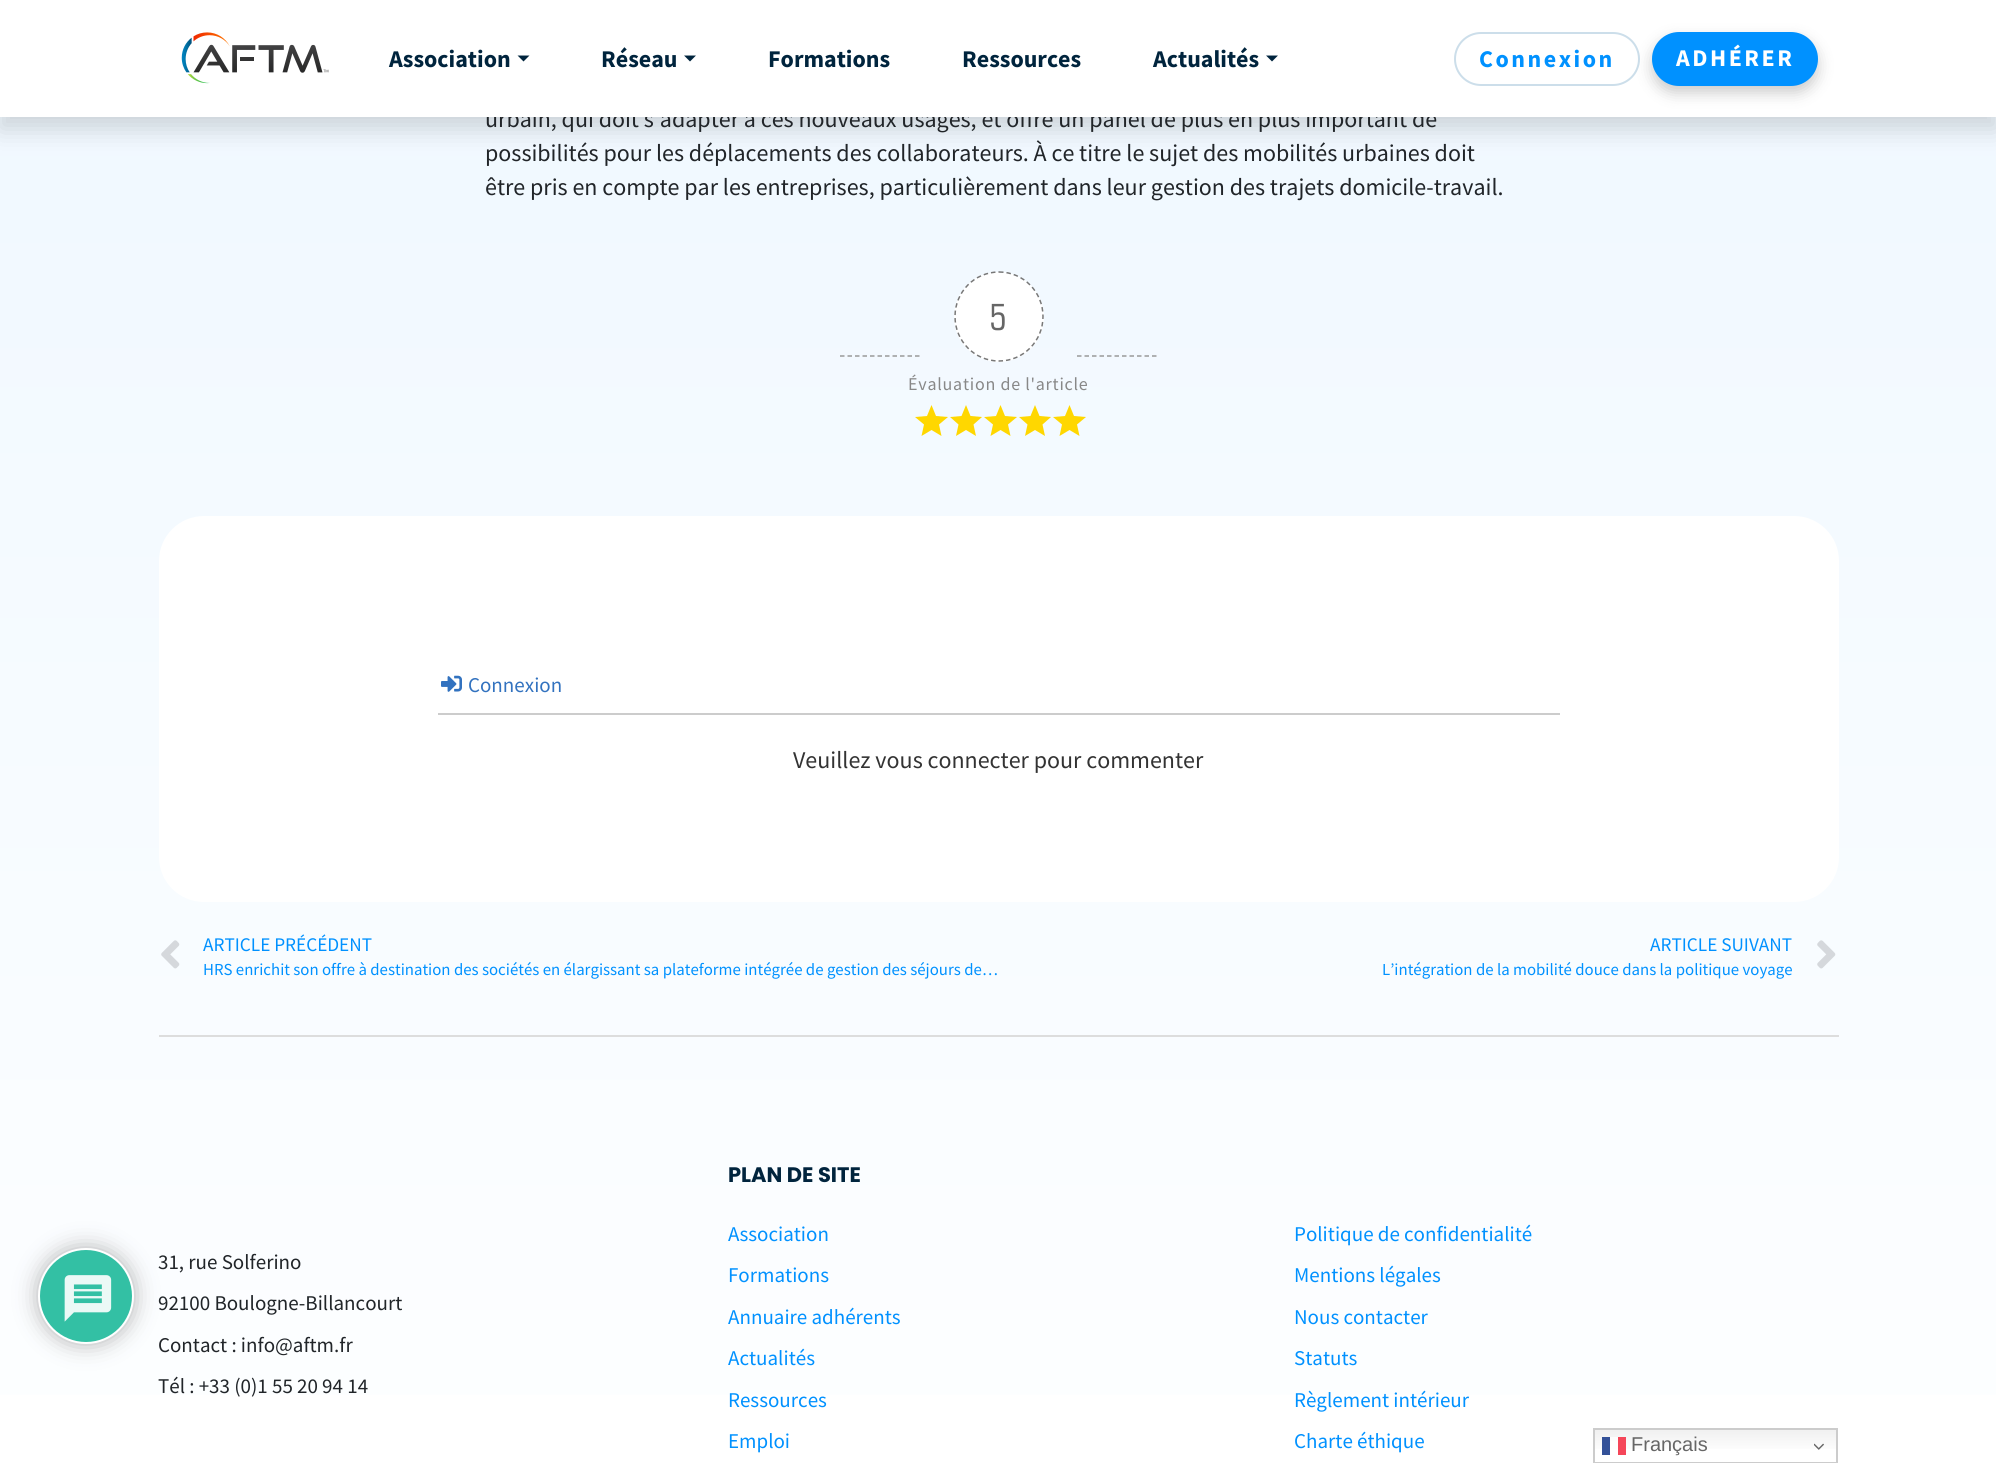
import math
import cairo

surface = cairo.ImageSurface(cairo.FORMAT_RGB24, 1996, 1463)
c = cairo.Context(surface)
options = cairo.FontOptions()
options.set_hint_metrics(cairo.HINT_METRICS_OFF)
options.set_hint_style(cairo.HINT_STYLE_NONE)
c.set_font_options(options)
c.set_miter_limit(4)
def C(code):
 c.set_source_rgb(*(v / 255 for v in bytes.fromhex(code[-6:])))
def F(family, size, italic, bold):
 c.select_font_face(family, cairo.FONT_SLANT_ITALIC if italic else cairo.FONT_SLANT_NORMAL, cairo.FONT_WEIGHT_BOLD if bold else cairo.FONT_WEIGHT_NORMAL)
 c.set_font_size(size)
def T(x, y, s):
 c.move_to(x, y)
 c.show_text(s)
def L(x, y, s, letter, word):
 c.move_to(x, y)
 for ch in s:
  c.show_text(ch)
  c.rel_move_to(letter + word * (ch == ' '), 0)
def R(x, y, w, h):
 c.rectangle(x, y, w, h)
 c.fill()
def Q(x, y, w, h, r):
 c.new_sub_path()
 for i, (u, v) in enumerate([(x + w - r, y + h - r), (x + r, y + h - r), (x + r, y + r), (x + w - r, y + r)]):
  c.arc(u, v, r, i * math.pi / 2, (i + 1) * math.pi / 2)
 c.close_path()
def S(x, y, w, h, r, blur, alpha):
 c.push_group_with_content(cairo.CONTENT_ALPHA)
 c.set_operator(cairo.OPERATOR_SOURCE)
 for i in range(15, -16, -2):
  e = blur * i / 6
  if min(w, h) + 2 * e > 0:
   c.set_source_rgba(0, 0, 0, alpha * math.erfc((i - 1) / 8.5) / 2)
   Q(x - e, y - e, w + 2 * e, h + 2 * e, max(0, min(r + e + blur * .6, min(w, h) / 2 + e)))
   c.fill()
 c.mask(c.pop_group())
def I(path, x, y, w, h):
 c.save()
 c.set_source_surface(cairo.ImageSurface.create_from_png(path), x, y)
 c.rectangle(x, y, w, h)
 c.fill()
 c.restore()
C('ffffff')
c.paint()
gradient = cairo.LinearGradient(998,-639,998,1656)
gradient.add_color_stop_rgba(0,0.914,0.961,1,1)
gradient.add_color_stop_rgba(1,1,1,1,1)
c.set_source(gradient)
R(0,117,1996,1278)
C('b2b2b3')
S(38,1248,96,96,48,11,1)
C('33c0a4')
c.arc(86,1296,47,0,2 * math.pi)
c.fill_preserve()
C('ffffff')
c.stroke()
I('1.png',64,1275,48,47)
C('000000')
S(0,12,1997,117,0,12,.15)
F('Source Sans Pro',24,0,0)
C('212529')
T(485,127,'urbain, qui doit s’adapter à ces nouveaux usages, et offre un panel de plus en plus important de')
C('ffffff')
R(0,0,1996,117)
I('2.png',181,32,148,52)
F('Source Sans Pro',24,0,1)
C('00243d')
T(389,67,'Association')
c.new_path()
c.move_to(517.5,55.5)
c.line_to(529.5,55.5)
c.line_to(523.5,61.5)
c.close_path()
c.fill()
T(601,67,'Réseau')
c.new_path()
c.move_to(684,55.5)
c.line_to(696,55.5)
c.line_to(690,61.5)
c.close_path()
c.fill()
T(768,67,'Formations')
T(962,67,'Ressources')
T(1153,67,'Actualités')
c.new_path()
c.move_to(1266,55.5)
c.line_to(1278,55.5)
c.line_to(1272,61.5)
c.close_path()
c.fill()
Q(1455,33,184,52,26)
C('ccdeea')
c.stroke()
C('0091ff')
L(1479,67,'Connexion',2.5,0)
C('000000')
S(1652,39,166,54,27,7.5,.2)
C('0091ff')
Q(1652,32,166,54,27)
c.fill()
C('ffffff')
L(1676,66,'ADHÉRER',2.5,0)
F('Source Sans Pro',24,0,0)
C('212529')
T(485,161,'possibilités pour les déplacements des collaborateurs. À ce titre le sujet des mobilités urbaines doit')
T(485,195,'être pris en compte par les entreprises, particulièrement dans leur gestion des trajets domicile-travail.')
c.new_path()
c.move_to(840,356)
c.line_to(919.5,356)
C('999999')
c.set_line_width(1.5)
c.set_dash([4.5,3])
c.stroke()
C('ffffff')
c.arc(999,317,45,0,2 * math.pi)
c.fill()
c.new_path()
c.move_to(999,272)
c.curve_to(1023.5,272,1043,292,1043,316.5)
c.curve_to(1043,341,1023.5,361,999,361)
c.curve_to(974.5,361,955,341,955,316.5)
c.curve_to(955,292,974.5,272,999,272)
c.close_path()
C('777777')
c.stroke()
F('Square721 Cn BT',36,0,0)
C('666666')
T(989,330,'5')
F('Source Sans Pro',18,0,0)
C('888888')
L(908,390,'Évaluation de l\'article',.75,0)
C('ffd700')
c.new_path()
c.move_to(931.5,430)
c.line_to(941.5,436)
c.line_to(939,424.5)
c.line_to(948,417)
c.line_to(936,416)
c.line_to(931.5,405)
c.line_to(927,416)
c.line_to(915,417)
c.line_to(924,424.5)
c.line_to(921.5,436)
c.close_path()
c.fill()
c.new_path()
c.move_to(966,430)
c.line_to(976,436)
c.line_to(973.5,424.5)
c.line_to(982,417)
c.line_to(970.5,416)
c.line_to(966,405)
c.line_to(961.5,416)
c.line_to(950,417)
c.line_to(958.5,424.5)
c.line_to(956,436)
c.close_path()
c.fill()
c.new_path()
c.move_to(1000.5,430)
c.line_to(1010.5,436)
c.line_to(1008,424.5)
c.line_to(1017,417)
c.line_to(1005,416)
c.line_to(1000.5,405)
c.line_to(996,416)
c.line_to(984,417)
c.line_to(993,424.5)
c.line_to(990.5,436)
c.close_path()
c.fill()
c.new_path()
c.move_to(1035,430)
c.line_to(1045,436)
c.line_to(1042.5,424.5)
c.line_to(1051,417)
c.line_to(1039.5,416)
c.line_to(1035,405)
c.line_to(1030.5,416)
c.line_to(1019,417)
c.line_to(1027.5,424.5)
c.line_to(1025,436)
c.close_path()
c.fill()
c.new_path()
c.move_to(1069.5,430)
c.line_to(1079.5,436)
c.line_to(1077,424.5)
c.line_to(1086,417)
c.line_to(1074,416)
c.line_to(1069.5,405)
c.line_to(1065,416)
c.line_to(1053,417)
c.line_to(1062,424.5)
c.line_to(1059.5,436)
c.close_path()
c.fill()
c.new_path()
c.move_to(1077,356)
c.line_to(1156.5,356)
C('999999')
c.stroke()
C('ffffff')
Q(159,516,1680,386,45)
c.fill()
C('cccccc')
R(438,713,1122,2)
I('3.png',441,675,21,17)
F('Source Sans Pro',21,0,0)
C('3272bf')
T(468,692,'Connexion')
F('Source Sans Pro',24,0,0)
C('333333')
T(793,768,'Veuillez vous connecter pour commenter')
I('4.png',161,940,19,29)
F('Source Sans Pro',19.25,0,0)
C('0091ff')
T(203,951,'ARTICLE PRÉCÉDENT')
F('Source Sans Pro',16.8,0,0)
T(203,975,'HRS enrichit son offre à destination des sociétés en élargissant sa plateforme intégrée de gestion des séjours de…')
F('Source Sans Pro',19.25,0,0)
T(1650,951,'ARTICLE SUIVANT')
F('Source Sans Pro',16.8,0,0)
T(1382,975,'L’intégration de la mobilité douce dans la politique voyage')
I('5.png',1817,940,19,29)
C('dddddd')
R(159,1035,1680,2)
F('Source Sans Pro',21,0,0)
C('212529')
T(158,1269,'31, rue Solferino')
T(158,1310,'92100 Boulogne-Billancourt')
T(158,1352,'Contact : info@aftm.fr')
T(158,1393,'Tél : +33 (0)1 55 20 94 14')
F('Poppins',21,0,1)
C('00243d')
T(728,1182,'PLAN DE SITE')
F('Source Sans Pro',21,0,0)
C('0091ff')
T(728,1241,'Association')
T(1294,1241,'Politique de confidentialité')
T(728,1282,'Formations')
T(1294,1282,'Mentions légales')
T(728,1324,'Annuaire adhérents')
T(1294,1324,'Nous contacter')
T(728,1365,'Actualités')
T(1294,1365,'Statuts')
T(728,1407,'Ressources')
T(1294,1407,'Règlement intérieur')
T(728,1448,'Emploi')
T(1294,1448,'Charte éthique')
gradient = cairo.LinearGradient(1715,1428,1715,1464)
gradient.add_color_stop_rgba(0,0.937,0.937,0.937,1)
gradient.add_color_stop_rgba(.7,1,1,1,1)
c.set_source(gradient)
R(1595,1430,241,19)
gradient = cairo.LinearGradient(1715,1428,1715,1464)
gradient.add_color_stop_rgba(0,0.988,0.988,0.988,1)
gradient.add_color_stop_rgba(.7,1,1,1,1)
c.set_source(gradient)
R(1610,1437,8,18)
c.rectangle(1594,1429,243,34)
C('cccccc')
c.set_line_width(2)
c.set_dash([])
c.stroke()
C('335198')
R(1602,1437,8,18)
C('f54659')
R(1618,1437,8,18)
F('Liberation Sans',20,0,0)
C('666666')
T(1631,1451,'Français')
I('6.png',1814,1443,10,7)
surface.write_to_png('o.png')
